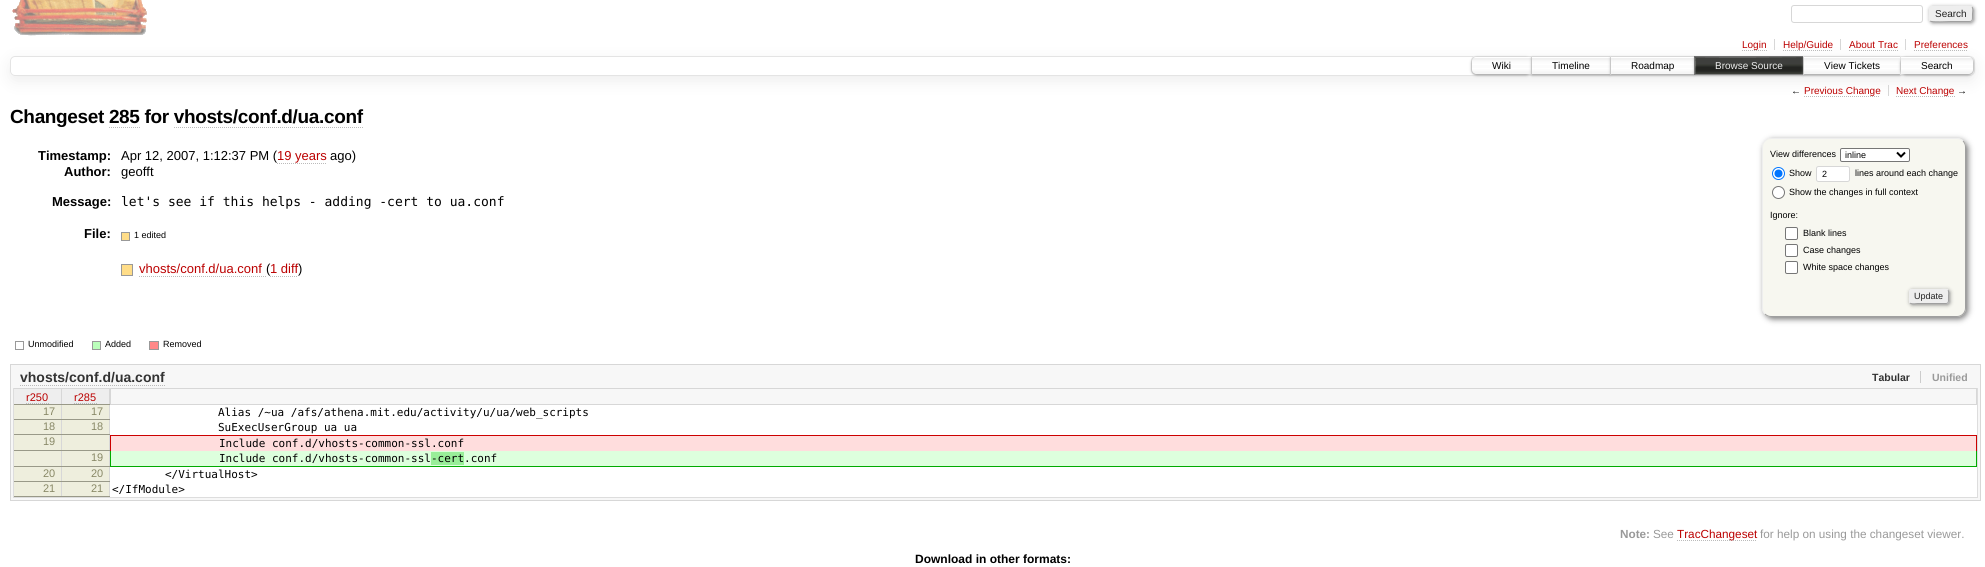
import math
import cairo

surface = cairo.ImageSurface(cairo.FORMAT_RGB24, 1985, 567)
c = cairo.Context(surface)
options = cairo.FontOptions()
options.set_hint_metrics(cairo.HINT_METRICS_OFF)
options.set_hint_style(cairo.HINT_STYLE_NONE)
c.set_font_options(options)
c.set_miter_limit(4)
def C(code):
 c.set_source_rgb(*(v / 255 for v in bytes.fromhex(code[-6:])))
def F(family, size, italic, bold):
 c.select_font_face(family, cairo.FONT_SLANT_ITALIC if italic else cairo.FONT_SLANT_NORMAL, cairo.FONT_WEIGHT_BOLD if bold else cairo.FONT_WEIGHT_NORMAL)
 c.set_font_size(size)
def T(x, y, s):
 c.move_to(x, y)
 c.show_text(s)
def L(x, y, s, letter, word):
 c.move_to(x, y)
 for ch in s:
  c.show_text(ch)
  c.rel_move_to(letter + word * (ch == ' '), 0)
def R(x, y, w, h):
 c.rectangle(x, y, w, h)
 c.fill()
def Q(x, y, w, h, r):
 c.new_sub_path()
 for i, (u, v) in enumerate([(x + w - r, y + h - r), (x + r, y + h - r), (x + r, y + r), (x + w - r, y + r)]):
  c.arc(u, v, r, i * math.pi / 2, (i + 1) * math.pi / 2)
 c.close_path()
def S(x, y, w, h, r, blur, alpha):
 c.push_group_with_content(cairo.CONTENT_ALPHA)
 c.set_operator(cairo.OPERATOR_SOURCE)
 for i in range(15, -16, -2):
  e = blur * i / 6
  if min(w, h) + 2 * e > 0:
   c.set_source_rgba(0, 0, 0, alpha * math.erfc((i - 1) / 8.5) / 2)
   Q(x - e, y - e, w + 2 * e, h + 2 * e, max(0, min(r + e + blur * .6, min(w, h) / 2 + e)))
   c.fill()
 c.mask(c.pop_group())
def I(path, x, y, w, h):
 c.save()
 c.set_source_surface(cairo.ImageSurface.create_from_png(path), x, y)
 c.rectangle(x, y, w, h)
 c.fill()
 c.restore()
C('ffffff')
c.paint()
I('1.png',12,0,135,36)
Q(1791.5,5.5,131,17,2.5)
C('d7d7d7')
c.set_line_width(1)
c.stroke()
C('888888')
S(1930,7,44,16,3,2,1)
C('eeeeee')
Q(1929,6,44,16,3)
c.fill()
c.new_path()
c.move_to(1972,7)
c.curve_to(1973.5,9,1972.5,12,1972.5,14)
c.curve_to(1972.5,22.5,1973,21.5,1963.5,21.5)
c.line_to(1951,21.5)
c.curve_to(1948,21.5,1932,22.5,1930,21)
C('9f9f9f')
c.stroke()
c.new_path()
c.move_to(1930,21)
c.curve_to(1928.5,19,1929.5,16,1929.5,14)
c.curve_to(1929.5,5.5,1929,6.5,1938.5,6.5)
c.line_to(1951,6.5)
c.curve_to(1954,6.5,1970,5.5,1972,7)
C('eeeeee')
c.stroke()
F('Liberation Sans',10,0,0)
C('222222')
T(1935,17,'Search')
c.save()
c.set_fill_rule(cairo.FILL_RULE_EVEN_ODD)
c.new_path()
c.move_to(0,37)
c.line_to(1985,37)
c.line_to(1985,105)
c.line_to(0,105)
c.close_path()
c.move_to(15,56)
c.line_to(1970,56)
c.curve_to(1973,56,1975,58,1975,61)
c.line_to(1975,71)
c.curve_to(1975,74,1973,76,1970,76)
c.line_to(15,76)
c.curve_to(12,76,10,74,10,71)
c.line_to(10,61)
c.curve_to(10,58,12,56,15,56)
c.close_path()
c.clip()
C('eeeeee')
S(10,61,1965,20,5,7.5,1)
c.restore()
C('d7d7d7')
R(1774,39,1,11)
c.new_path()
c.move_to(1742,50.5)
c.line_to(1767,50.5)
C('bbbbbb')
c.set_dash([1,1])
c.stroke()
C('bb0000')
T(1742,48,'Login')
C('d7d7d7')
R(1840,39,1,11)
c.new_path()
c.move_to(1783,50.5)
c.line_to(1833,50.5)
C('bbbbbb')
c.stroke()
C('bb0000')
T(1783,48,'Help/Guide')
C('d7d7d7')
R(1905,39,1,11)
C('bb0000')
T(1849,48,'About Trac')
c.new_path()
c.move_to(1849,50.5)
c.line_to(1898,50.5)
C('bbbbbb')
c.stroke()
C('bb0000')
T(1914,48,'Preferences')
c.new_path()
c.move_to(1914,50.5)
c.line_to(1968,50.5)
C('bbbbbb')
c.stroke()
Q(10.5,56.5,1964,19,4.5)
C('e4e4e4')
c.set_dash([])
c.stroke()
C('ffffff')
c.new_path()
c.move_to(1476,56)
c.line_to(1532,56)
c.line_to(1532,75)
c.line_to(1476,75)
c.curve_to(1473,75,1471,73,1471,70)
c.line_to(1471,61)
c.curve_to(1471,58,1473,56,1476,56)
c.close_path()
c.fill()
I('2.png',1471,58,60,17)
c.new_path()
c.move_to(1476,56.5)
c.line_to(1531.5,56.5)
c.line_to(1531.5,74.5)
c.line_to(1476,74.5)
c.curve_to(1473.5,74.5,1471.5,72.5,1471.5,70)
c.line_to(1471.5,61)
c.curve_to(1471.5,58.5,1473.5,56.5,1476,56.5)
c.close_path()
C('e4e4e4')
c.stroke()
c.save()
c.set_fill_rule(cairo.FILL_RULE_EVEN_ODD)
c.new_path()
c.move_to(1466,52)
c.line_to(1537,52)
c.line_to(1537,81)
c.line_to(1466,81)
c.close_path()
c.move_to(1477,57)
c.line_to(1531,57)
c.line_to(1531,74)
c.line_to(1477,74)
c.curve_to(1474,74,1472,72,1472,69)
c.line_to(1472,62)
c.curve_to(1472,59,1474,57,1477,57)
c.close_path()
c.clip()
C('999999')
S(1472,58,59,17,5,1.5,1)
c.restore()
C('000000')
T(1492,69,'Wiki')
C('ffffff')
R(1532,59,2,15)
I('3.png',1532,58,78,16)
c.rectangle(1531.5,56.5,79,18)
C('e4e4e4')
c.stroke()
c.save()
c.set_fill_rule(cairo.FILL_RULE_EVEN_ODD)
c.new_path()
c.move_to(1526,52)
c.line_to(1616,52)
c.line_to(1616,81)
c.line_to(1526,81)
c.close_path()
c.move_to(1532,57)
c.line_to(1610,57)
c.line_to(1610,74)
c.line_to(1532,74)
c.close_path()
c.clip()
C('999999')
S(1532,58,78,17,0,1.5,1)
c.restore()
C('000000')
T(1552,69,'Timeline')
C('ffffff')
R(1611,57,2,17)
I('4.png',1611,58,83,16)
c.rectangle(1610.5,56.5,84,18)
C('e4e4e4')
c.stroke()
c.save()
c.set_fill_rule(cairo.FILL_RULE_EVEN_ODD)
c.new_path()
c.move_to(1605,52)
c.line_to(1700,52)
c.line_to(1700,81)
c.line_to(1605,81)
c.close_path()
c.move_to(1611,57)
c.line_to(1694,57)
c.line_to(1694,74)
c.line_to(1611,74)
c.close_path()
c.clip()
C('999999')
S(1611,58,83,17,0,1.5,1)
c.restore()
C('000000')
T(1631,69,'Roadmap')
c.rectangle(1694.5,56.5,109,18)
C('666666')
c.stroke()
C('999999')
S(1695,58,108,17,0,1.5,1)
C('000000')
R(1695,57,108,17)
I('5.png',1695,57,108,17)
C('eeeeee')
T(1715,69,'Browse Source')
C('ffffff')
R(1804,57,2,17)
I('6.png',1804,58,96,16)
c.rectangle(1803.5,56.5,97,18)
C('e4e4e4')
c.stroke()
c.save()
c.set_fill_rule(cairo.FILL_RULE_EVEN_ODD)
c.new_path()
c.move_to(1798,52)
c.line_to(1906,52)
c.line_to(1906,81)
c.line_to(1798,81)
c.close_path()
c.move_to(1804,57)
c.line_to(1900,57)
c.line_to(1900,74)
c.line_to(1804,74)
c.close_path()
c.clip()
C('999999')
S(1804,58,96,17,0,1.5,1)
c.restore()
C('000000')
T(1824,69,'View Tickets')
C('ffffff')
c.new_path()
c.move_to(1900,56)
c.line_to(1969,56)
c.curve_to(1972,56,1974,58,1974,61)
c.line_to(1974,70)
c.curve_to(1974,73,1972,75,1969,75)
c.line_to(1900,75)
c.close_path()
c.fill()
I('7.png',1901,58,73,17)
c.new_path()
c.move_to(1900.5,56.5)
c.line_to(1969,56.5)
c.curve_to(1971.5,56.5,1973.5,58.5,1973.5,61)
c.line_to(1973.5,70)
c.curve_to(1973.5,72.5,1971.5,74.5,1969,74.5)
c.line_to(1900.5,74.5)
c.close_path()
C('e4e4e4')
c.stroke()
c.save()
c.set_fill_rule(cairo.FILL_RULE_EVEN_ODD)
c.new_path()
c.move_to(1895,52)
c.line_to(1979,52)
c.line_to(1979,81)
c.line_to(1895,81)
c.close_path()
c.move_to(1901,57)
c.line_to(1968,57)
c.curve_to(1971,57,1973,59,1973,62)
c.line_to(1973,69)
c.curve_to(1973,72,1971,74,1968,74)
c.line_to(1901,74)
c.close_path()
c.clip()
C('999999')
S(1901,58,72,17,5,1.5,1)
c.restore()
C('000000')
T(1921,69,'Search')
C('d7d7d7')
R(1888,85,1,11)
C('000000')
T(1791,94,'←')
c.new_path()
c.move_to(1804,96.5)
c.line_to(1880,96.5)
C('bbbbbb')
c.set_dash([1,1])
c.stroke()
C('bb0000')
T(1804,94,'Previous Change')
c.new_path()
c.move_to(1896,96.5)
c.line_to(1955,96.5)
C('bbbbbb')
c.stroke()
C('bb0000')
T(1896,94,'Next Change')
C('000000')
T(1957,94,'→')
F('Liberation Sans',19,0,1)
L(10,123,'Changeset 285 for vhosts/conf.d/ua.conf',-.35,0)
c.new_path()
c.move_to(109,127.5)
c.line_to(140,127.5)
C('bbbbbb')
c.stroke()
c.new_path()
c.move_to(174,127.5)
c.line_to(363,127.5)
c.stroke()
F('Liberation Sans',13,0,1)
C('000000')
T(38,160,'Timestamp:')
F('Liberation Sans',13,0,0)
T(121,160,'Apr 12, 2007, 1:12:37 PM (')
C('bb0000')
T(277,160,'19 years')
c.new_path()
c.move_to(277,163.5)
c.line_to(326,163.5)
C('bbbbbb')
c.stroke()
C('000000')
T(330,160,'ago)')
F('Liberation Sans',13,0,1)
T(64,176,'Author:')
F('Liberation Sans',13,0,0)
T(121,176,'geofft')
F('Liberation Sans',13,0,1)
T(52,206,'Message:')
F('DejaVu Sans Mono',13,0,0)
T(121,206,'let\'s see if this helps - adding -cert to ua.conf')
F('Liberation Sans',13,0,1)
T(84,238,'File:')
C('ffdd88')
c.rectangle(121.5,232.5,8,8)
c.fill_preserve()
C('999999')
c.set_dash([])
c.stroke()
F('Liberation Sans',9,0,0)
C('000000')
T(134,238,'1 edited')
C('ffdd88')
c.rectangle(121.5,264.5,11,11)
c.fill_preserve()
C('999999')
c.stroke()
F('Liberation Sans',13,0,0)
C('bb0000')
T(139,273,'vhosts/conf.d/ua.conf')
c.new_path()
c.move_to(139,276.5)
c.line_to(266,276.5)
C('bbbbbb')
c.set_dash([1,1])
c.stroke()
C('000000')
T(266,273,'(')
C('bb0000')
T(270,273,'1 diff')
c.new_path()
c.move_to(270,276.5)
c.line_to(298,276.5)
C('bbbbbb')
c.stroke()
C('000000')
T(298,273,')')
C('777777')
S(1764,140,204,179,9,3,1)
C('f7f7f0')
Q(1762,138,204,179,9)
c.fill()
c.new_path()
c.move_to(1963,141)
c.curve_to(1964.5,142.5,1965.5,144.5,1965.5,147)
c.line_to(1965.5,308)
c.curve_to(1965.5,310.5,1964.5,312.5,1963,314)
c.curve_to(1961.5,315.5,1959.5,316.5,1957,316.5)
c.line_to(1771,316.5)
c.curve_to(1768.5,316.5,1766.5,315.5,1765,314)
C('9f9f9f')
c.set_dash([])
c.stroke()
c.new_path()
c.move_to(1765,314)
c.curve_to(1763.5,312.5,1762.5,310.5,1762.5,308)
c.line_to(1762.5,147)
c.curve_to(1762.5,144.5,1763.5,142.5,1765,141)
c.curve_to(1766.5,139.5,1768.5,138.5,1771,138.5)
c.line_to(1957,138.5)
c.curve_to(1959.5,138.5,1961.5,139.5,1963,141)
C('eeeeee')
c.stroke()
F('Liberation Sans',9,0,0)
C('000000')
T(1770,157,'View differences')
C('ffffff')
Q(1840.5,148.5,69,13,1.5)
c.fill_preserve()
C('767676')
c.stroke()
c.new_path()
c.move_to(1897,152.5)
c.line_to(1901,156.5)
c.line_to(1905,152.5)
C('000000')
c.set_line_width(2)
c.stroke()
T(1845,158,'inline')
C('ffffff')
c.new_path()
c.arc(1778.5,173.5,6,0,2 * math.pi)
c.fill_preserve()
C('0075ff')
c.set_line_width(1)
c.stroke()
c.arc(1778.5,173.5,4,0,2 * math.pi)
c.fill()
C('000000')
T(1789,176,'Show')
C('ffffff')
Q(1816.5,166.5,33,15,2)
c.fill_preserve()
C('d7d7d7')
c.stroke()
C('000000')
T(1822,177,'2')
T(1855,176,'lines around each change')
C('ffffff')
c.new_path()
c.arc(1778.5,192.5,6,0,2 * math.pi)
c.fill_preserve()
C('767676')
c.stroke()
C('000000')
T(1789,195,'Show the changes in full context')
T(1770,218,'Ignore:')
C('ffffff')
Q(1785.5,227.5,12,12,1.5)
c.fill_preserve()
C('767676')
c.stroke()
C('000000')
T(1803,236,'Blank lines')
C('ffffff')
Q(1785.5,244.5,12,12,1.5)
c.fill_preserve()
C('767676')
c.stroke()
C('000000')
T(1803,253,'Case changes')
C('ffffff')
Q(1785.5,261.5,12,12,1.5)
c.fill_preserve()
C('767676')
c.stroke()
C('000000')
T(1803,270,'White space changes')
C('888888')
S(1910,290,40,15,2.5,2,1)
C('eeeeee')
Q(1909,289,40,15,2.5)
c.fill()
c.new_path()
c.move_to(1948,290)
c.curve_to(1949,291.5,1948.5,295,1948.5,296.5)
c.curve_to(1948.5,304.5,1949,303.5,1940.5,303.5)
c.line_to(1917.5,303.5)
c.curve_to(1917,303.5,1911.5,304.5,1910,303)
C('9f9f9f')
c.stroke()
c.new_path()
c.move_to(1910,303)
c.curve_to(1909,301.5,1909.5,298,1909.5,296.5)
c.curve_to(1909.5,288.5,1909,289.5,1917.5,289.5)
c.line_to(1940.5,289.5)
c.curve_to(1941,289.5,1946.5,288.5,1948,290)
C('eeeeee')
c.stroke()
C('222222')
T(1914,299,'Update')
c.rectangle(15.5,341.5,8,8)
C('999999')
c.stroke()
C('000000')
T(28,347,'Unmodified')
C('bbffbb')
c.rectangle(92.5,341.5,8,8)
c.fill_preserve()
C('999999')
c.stroke()
C('000000')
T(105,347,'Added')
C('ff8888')
c.rectangle(149.5,341.5,9,8)
c.fill_preserve()
C('999999')
c.stroke()
C('000000')
T(163,347,'Removed')
C('f7f7f7')
c.rectangle(10.5,364.5,1970,136)
c.fill_preserve()
C('d7d7d7')
c.stroke()
F('Liberation Sans',14,0,1)
C('333333')
T(20,382,'vhosts/conf.d/ua.conf')
c.new_path()
c.move_to(20,385.5)
c.line_to(165,385.5)
C('bbbbbb')
c.set_dash([1,1])
c.stroke()
F('Liberation Sans',10.5,0,1)
C('333333')
T(1872,381,'Tabular')
C('999999')
T(1932,381,'Unified')
C('cccccc')
R(1920,371,1,12)
C('dddddd')
R(1977,388,1,110)
R(13,497,1965,1)
R(13,388,1,110)
C('eeeeee')
R(14,389,47,15)
C('d7d7d7')
R(14,388,96,1)
R(61,388,1,109)
C('999988')
R(14,404,48,1)
F('Liberation Sans',11,0,0)
C('bb0000')
T(26,401,'r250')
c.new_path()
c.move_to(26,403.5)
c.line_to(49,403.5)
C('bbbbbb')
c.stroke()
C('eeeeee')
R(62,389,47,15)
C('d7d7d7')
R(109,388,1,109)
C('999988')
R(62,404,48,1)
C('bb0000')
T(74,401,'r285')
c.new_path()
c.move_to(74,403.5)
c.line_to(97,403.5)
C('bbbbbb')
c.stroke()
c.rectangle(110.5,388.5,1866,16)
C('d7d7d7')
c.set_dash([])
c.stroke()
C('eeeedd')
R(14,405,47,14)
C('999988')
R(14,419,96,1)
C('888866')
T(43,415,'17')
C('eeeedd')
R(62,405,47,14)
C('888866')
T(91,415,'17')
C('ffffff')
R(110,405,1867,30)
F('DejaVu Sans Mono',11,0,0)
C('000000')
T(218,416,'Alias /~ua /afs/athena.mit.edu/activity/u/ua/web_scripts')
C('eeeedd')
R(14,420,47,14)
C('999988')
R(14,434,96,1)
F('Liberation Sans',11,0,0)
C('888866')
T(43,430,'18')
C('eeeedd')
R(62,420,47,14)
C('888866')
T(91,430,'18')
F('DejaVu Sans Mono',11,0,0)
C('000000')
T(218,431,'SuExecUserGroup ua ua')
C('eeeedd')
R(14,435,47,15)
C('999988')
R(14,450,96,1)
F('Liberation Sans',11,0,0)
C('888866')
T(43,445,'19')
C('eeeedd')
R(62,435,47,15)
C('ffdddd')
R(111,436,1865,15)
C('cc0000')
R(110,435,1867,1)
R(1976,435,1,16)
R(110,435,1,16)
F('DejaVu Sans Mono',11,0,0)
C('000000')
T(219,447,'Include conf.d/vhosts-common-ssl.conf')
C('eeeedd')
R(14,451,47,15)
C('999988')
R(14,466,96,1)
C('eeeedd')
R(62,451,47,15)
F('Liberation Sans',11,0,0)
C('888866')
T(91,461,'19')
C('ddffdd')
R(111,451,1865,15)
C('00aa00')
R(1976,451,1,16)
R(110,466,1867,1)
R(110,451,1,16)
F('DejaVu Sans Mono',11,0,0)
C('000000')
T(219,462,'Include conf.d/vhosts-common-ssl')
C('99ee99')
R(431,452,33,13)
C('000000')
T(431,462,'-cert.conf')
C('eeeedd')
R(14,467,47,14)
C('999988')
R(14,481,96,1)
F('Liberation Sans',11,0,0)
C('888866')
T(43,477,'20')
C('eeeedd')
R(62,467,47,14)
C('888866')
T(91,477,'20')
C('ffffff')
R(110,467,1867,30)
F('DejaVu Sans Mono',11,0,0)
C('000000')
T(165,478,'</VirtualHost>')
C('eeeedd')
R(14,482,47,14)
C('999988')
R(14,496,96,1)
F('Liberation Sans',11,0,0)
C('888866')
T(43,492,'21')
C('eeeedd')
R(62,482,47,14)
C('888866')
T(91,492,'21')
F('DejaVu Sans Mono',11,0,0)
C('000000')
T(112,493,'</IfModule>')
F('Liberation Sans',11.75,0,1)
C('999999')
T(1620,538,'Note:')
F('Liberation Sans',11.75,0,0)
T(1653,538,'See')
c.new_path()
c.move_to(1677,540.5)
c.line_to(1757,540.5)
C('bbbbbb')
c.set_dash([1,1])
c.stroke()
C('bb0000')
T(1677,538,'TracChangeset')
C('999999')
T(1760,538,'for help on using the changeset viewer.')
F('Liberation Sans',12,0,1)
C('000000')
T(915,563,'Download in other formats:')
surface.write_to_png('o.png')
